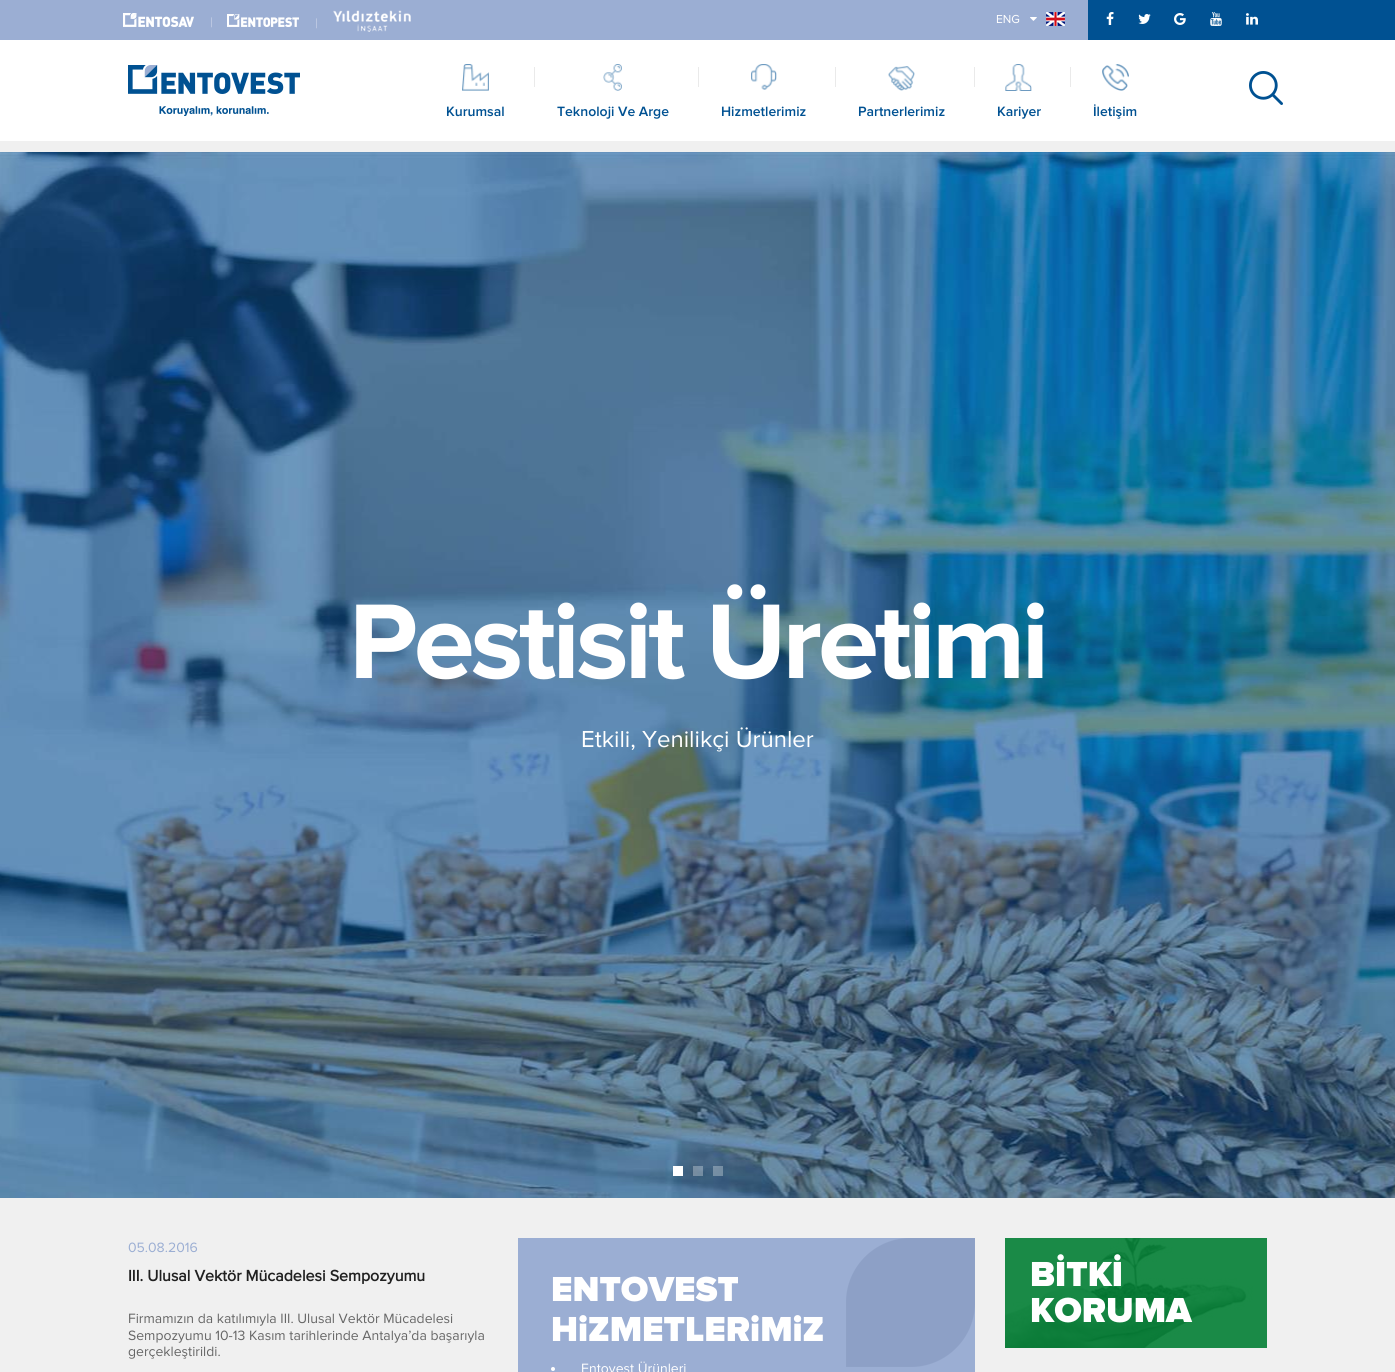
import math
import cairo

surface = cairo.ImageSurface(cairo.FORMAT_RGB24, 1395, 1372)
c = cairo.Context(surface)
options = cairo.FontOptions()
options.set_hint_metrics(cairo.HINT_METRICS_OFF)
options.set_hint_style(cairo.HINT_STYLE_NONE)
c.set_font_options(options)
c.set_miter_limit(4)
def C(code):
 c.set_source_rgb(*(v / 255 for v in bytes.fromhex(code[-6:])))
def F(family, size, italic, bold):
 c.select_font_face(family, cairo.FONT_SLANT_ITALIC if italic else cairo.FONT_SLANT_NORMAL, cairo.FONT_WEIGHT_BOLD if bold else cairo.FONT_WEIGHT_NORMAL)
 c.set_font_size(size)
def T(x, y, s):
 c.move_to(x, y)
 c.show_text(s)
def L(x, y, s, letter, word):
 c.move_to(x, y)
 for ch in s:
  c.show_text(ch)
  c.rel_move_to(letter + word * (ch == ' '), 0)
def R(x, y, w, h):
 c.rectangle(x, y, w, h)
 c.fill()
def I(path, x, y, w, h):
 c.save()
 c.set_source_surface(cairo.ImageSurface.create_from_png(path), x, y)
 c.rectangle(x, y, w, h)
 c.fill()
 c.restore()
C('ffffff')
c.paint()
C('9baed3')
R(0,0,1088,40)
I('1.png',123,13,71,14)
F('Proxima Nova',14,0,0)
C('c3cee5')
T(210,27,'|')
I('2.png',227,14,72,13)
T(315,28,'|')
I('3.png',333,10,78,22)
C('005192')
R(1088,0,307,40)
I('4.png',1106,12,8,13)
I('5.png',1138,14,13,10)
I('6.png',1174,13,12,12)
I('7.png',1210,12,12,14)
I('8.png',1246,13,12,12)
F('Proxima Nova',12,0,0)
C('ffffff')
T(996,23,'ENG')
I('9.png',1030,17,7,4)
I('10.png',1046,12,19,14)
I('11.png',128,65,172,51)
I('12.png',1249,71,34,34)
I('13.png',462,64,27,27)
F('Proxima Nova SemiBold',14,0,0)
C('005192')
T(446,116,'Kurumsal')
C('eaeaea')
R(534,67,1,20)
I('14.png',603,64,19,27)
C('005192')
T(557,116,'Teknoloji Ve Arge')
C('eaeaea')
R(698,67,1,20)
I('15.png',751,64,26,26)
C('005192')
T(721,116,'Hizmetlerimiz')
C('eaeaea')
R(835,67,1,20)
I('16.png',888,66,27,25)
C('005192')
T(858,116,'Partnerlerimiz')
C('eaeaea')
R(974,67,1,20)
I('17.png',1005,64,27,27)
C('005192')
T(997,116,'Kariyer')
C('eaeaea')
R(1070,67,1,20)
I('18.png',1102,64,27,27)
C('005192')
T(1093,116,'İletişim')
C('f0f0f0')
R(0,141,1395,1231)
I('19.png',0,152,1395,1046)
F('Proxima Nova',110,0,1)
C('ffffff')
L(349,678,'Pestisit Üretimi',-4,0)
F('Proxima Nova',24,0,0)
T(581,747,'Etkili, Yenilikçi Ürünler')
R(673,1166,10,10)
c.set_source_rgba(1,1,1,0.3)
R(693,1166,10,10)
R(713,1166,10,10)
F('Proxima Nova',14,0,0)
C('9baed3')
T(128,1252,'05.08.2016')
F('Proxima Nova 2',16,0,1)
C('202020')
T(128,1281,'III. Ulusal Vektör Mücadelesi Sempozyumu')
F('Proxima Nova',14,0,0)
C('666666')
T(128,1323,'Firmamızın da katılımıyla III. Ulusal Vektör Mücadelesi')
T(128,1340,'Sempozyumu 10-13 Kasım tarihlerinde Antalya’da başarıyla')
T(128,1356,'gerçekleştirildi.')
C('9baed3')
R(518,1238,457,134)
I('20.png',846,1238,129,129)
F('Proxima Nova Black',36,0,0)
C('ffffff')
T(551,1301,'ENTOVEST')
T(551,1341,'HiZMETLERiMiZ')
c.new_path()
c.arc(553,1369,2,0,2 * math.pi)
c.fill()
F('Proxima Nova',14,0,0)
T(581,1373,'Entovest Ürünleri')
I('21.png',1005,1238,262,110)
F('Proxima Nova Black',36,0,0)
T(1030,1286,'BİTKİ')
T(1030,1322,'KORUMA')
surface.write_to_png('o.png')
